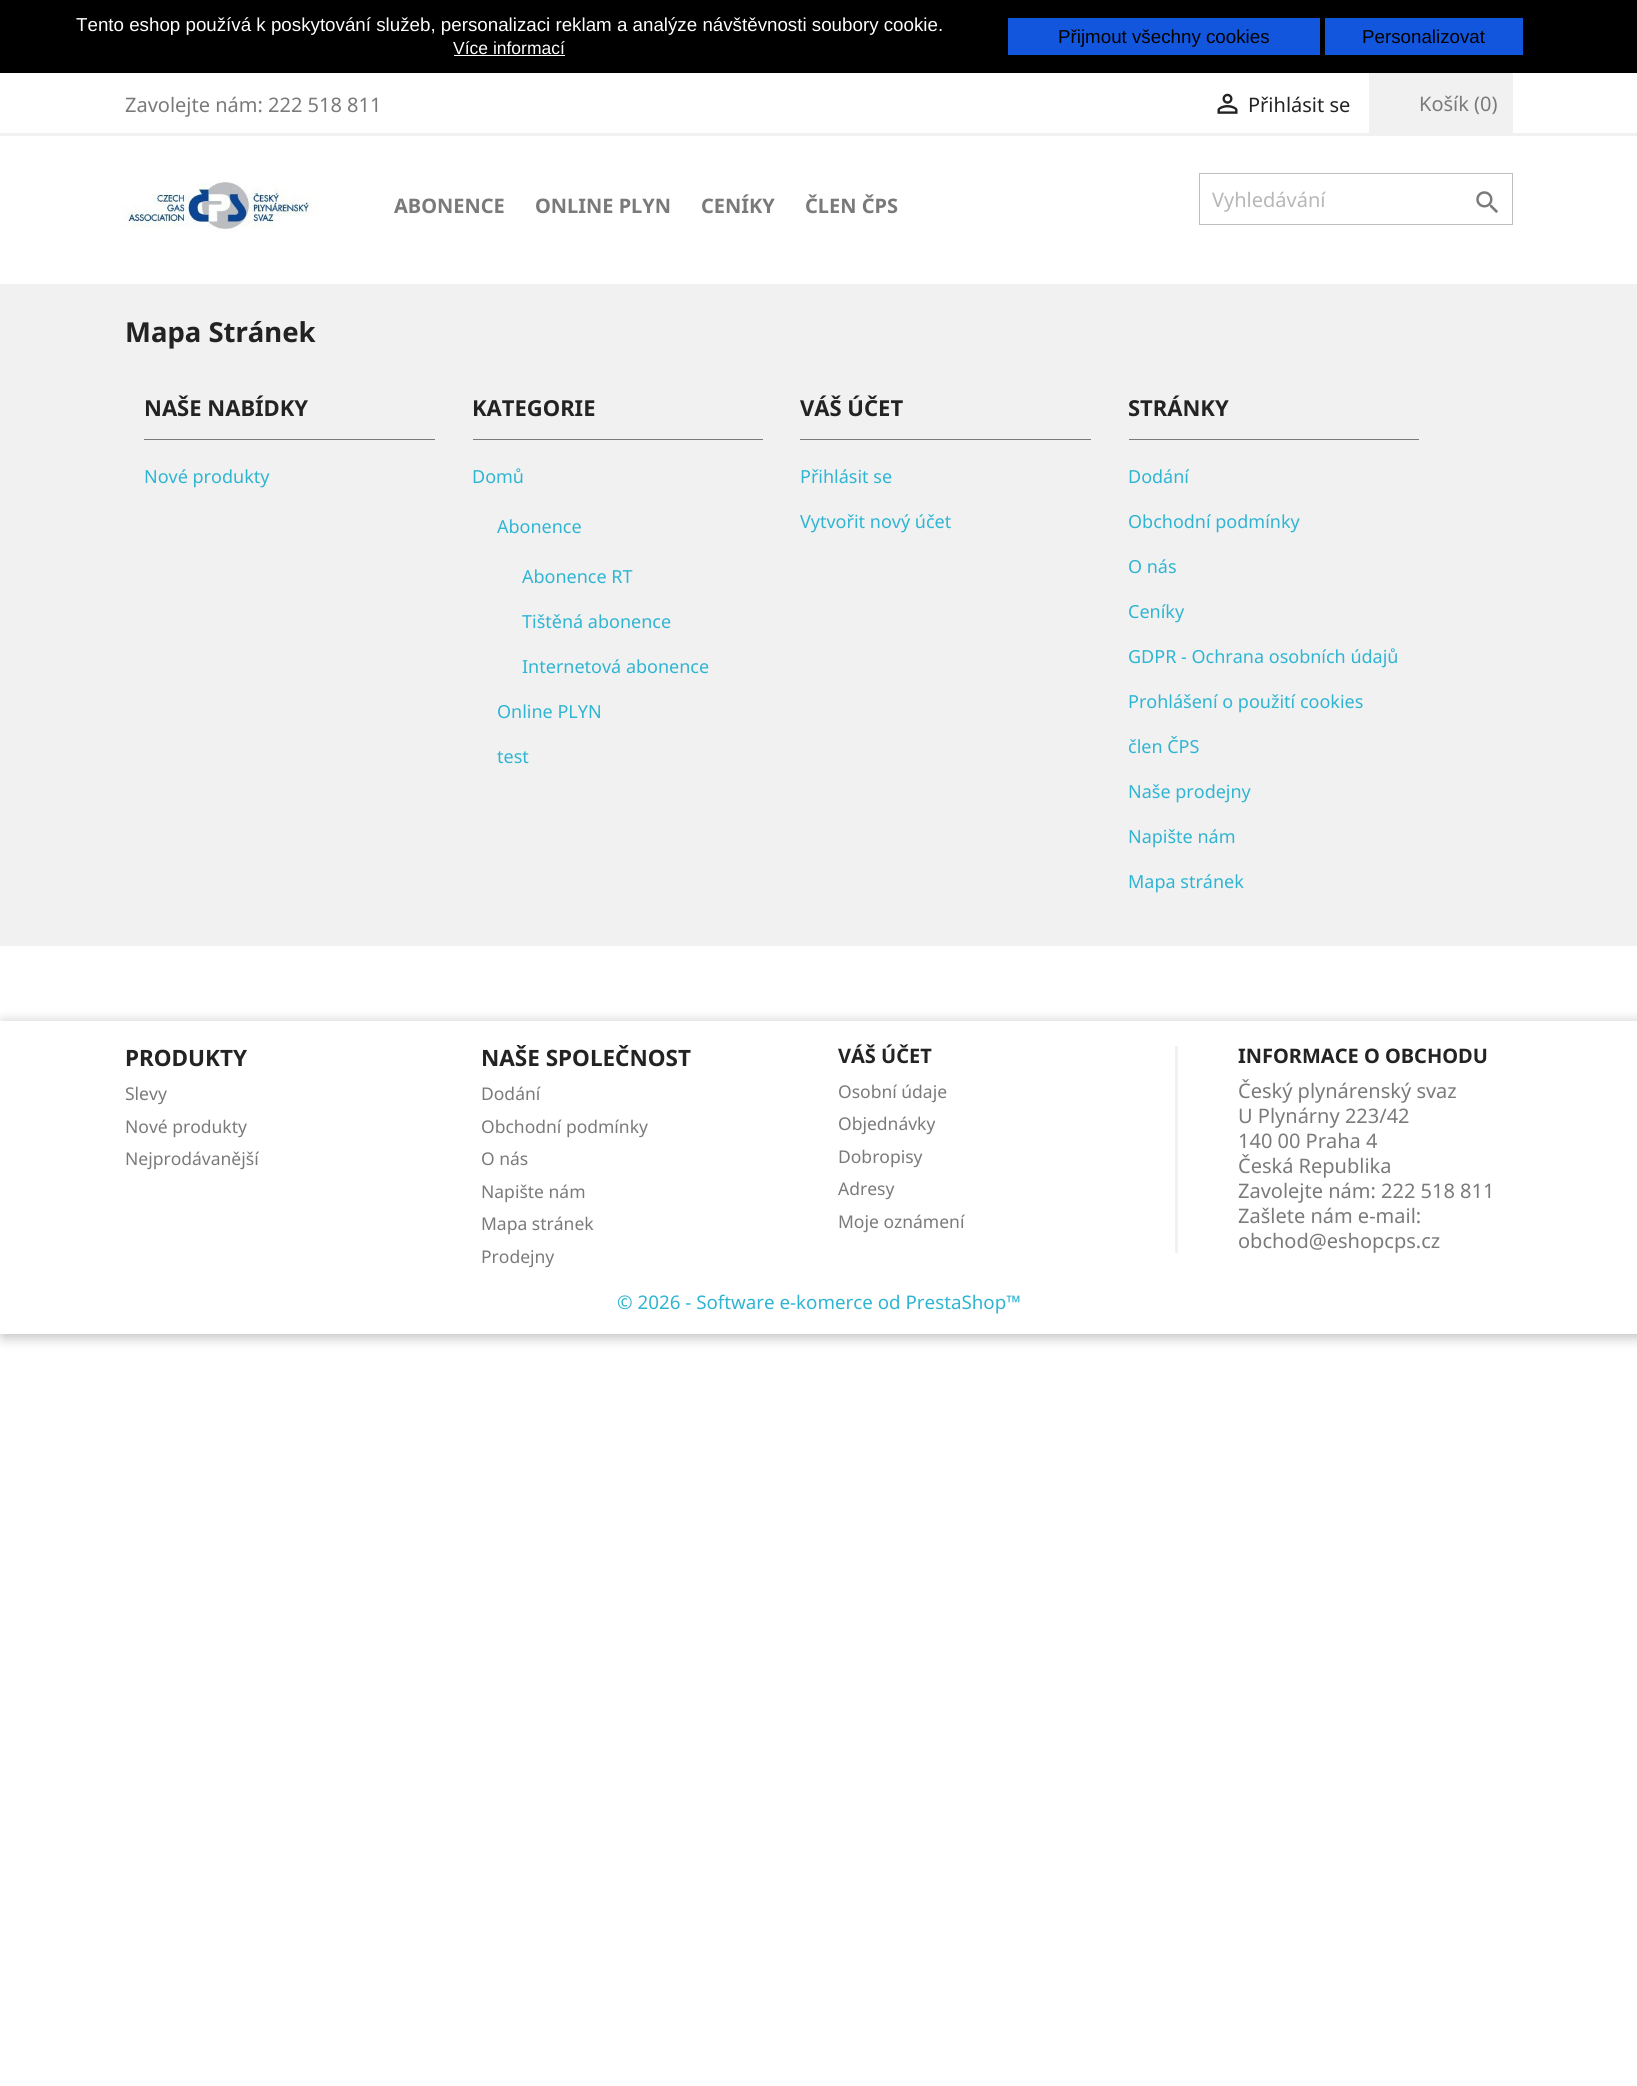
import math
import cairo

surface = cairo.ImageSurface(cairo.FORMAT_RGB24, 1637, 2086)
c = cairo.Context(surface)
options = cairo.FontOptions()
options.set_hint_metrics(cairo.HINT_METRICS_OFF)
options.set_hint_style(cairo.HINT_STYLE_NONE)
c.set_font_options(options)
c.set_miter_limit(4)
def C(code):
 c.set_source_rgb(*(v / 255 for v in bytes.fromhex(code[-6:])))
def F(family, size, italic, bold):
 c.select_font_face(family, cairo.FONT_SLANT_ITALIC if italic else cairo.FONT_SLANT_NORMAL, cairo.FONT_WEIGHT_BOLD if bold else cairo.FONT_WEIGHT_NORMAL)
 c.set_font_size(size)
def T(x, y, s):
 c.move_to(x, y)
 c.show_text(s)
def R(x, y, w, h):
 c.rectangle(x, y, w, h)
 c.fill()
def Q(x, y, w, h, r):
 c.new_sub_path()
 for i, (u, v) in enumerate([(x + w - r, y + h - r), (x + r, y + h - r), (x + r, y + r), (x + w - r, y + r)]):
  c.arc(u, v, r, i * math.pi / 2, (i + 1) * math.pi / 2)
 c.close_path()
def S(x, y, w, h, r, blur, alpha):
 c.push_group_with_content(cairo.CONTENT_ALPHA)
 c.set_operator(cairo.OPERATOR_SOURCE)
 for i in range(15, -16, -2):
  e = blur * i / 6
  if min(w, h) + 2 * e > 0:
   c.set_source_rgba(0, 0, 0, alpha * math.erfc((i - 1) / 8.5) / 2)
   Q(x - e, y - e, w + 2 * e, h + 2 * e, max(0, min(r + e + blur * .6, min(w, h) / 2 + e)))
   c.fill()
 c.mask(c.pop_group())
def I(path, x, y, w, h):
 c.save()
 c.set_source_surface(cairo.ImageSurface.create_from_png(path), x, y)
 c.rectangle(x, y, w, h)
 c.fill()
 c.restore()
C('ffffff')
c.paint()
C('000000')
R(0,0,1637,73)
F('Liberation Sans',18.75,0,0)
C('ffffff')
T(76,31,'Tento eshop používá k poskytování služeb, personalizaci reklam a analýze návštěvnosti soubory cookie.')
F('Liberation Sans',17.5,0,0)
T(453,54,'Více informací')
R(454,55,111,1)
C('1256de')
R(1008,18,312,37)
F('Liberation Sans',18.75,0,0)
C('000000')
T(1058,43,'Přijmout všechny cookies')
C('1256de')
R(1325,18,198,37)
C('000000')
T(1362,43,'Personalizovat')
C('f1f1f1')
R(0,133,1637,3)
F('Noto Sans',20,0,0)
C('7a7a7a')
T(125,112,'Zavolejte nám: 222 518 811')
I('1.png',1217,93,21,21)
C('232323')
T(1248,112,'Přihlásit se')
C('f1f1f1')
R(1369,73,144,60)
C('7a7a7a')
T(1419,111,'Košík (0)')
I('2.png',122,182,195,50)
F('Noto Sans',20,0,1)
T(394,213,'ABONENCE')
T(535,213,'ONLINE PLYN')
T(701,213,'CENÍKY')
T(805,213,'ČLEN ČPS')
c.rectangle(1199.5,173.5,313,51)
C('bfbfbf')
c.set_line_width(1)
c.stroke()
F('Noto Sans',20,0,0)
C('b7b7b7')
T(1212,207,'Vyhledávání')
I('3.png',1476,191,22,22)
C('f1f1f1')
R(0,284,1637,662)
F('Noto Sans',27.5,0,1)
C('232323')
T(125,342,'Mapa Stránek')
C('7a7a7a')
R(144,439,291,1)
F('Noto Sans',22,0,1)
C('232323')
T(144,416,'NAŠE NABÍDKY')
F('Noto Sans',18,0,0)
C('2fb5d2')
T(144,483,'Nové produkty')
C('7a7a7a')
R(473,439,290,1)
F('Noto Sans',22,0,1)
C('232323')
T(472,416,'KATEGORIE')
F('Noto Sans',18,0,0)
C('2fb5d2')
T(472,483,'Domů')
T(497,533,'Abonence')
T(522,583,'Abonence RT')
T(522,628,'Tištěná abonence')
T(522,673,'Internetová abonence')
T(497,718,'Online PLYN')
T(497,763,'test')
C('7a7a7a')
R(800,439,291,1)
F('Noto Sans',22,0,1)
C('232323')
T(800,416,'VÁŠ ÚČET')
F('Noto Sans',18,0,0)
C('2fb5d2')
T(800,483,'Přihlásit se')
T(800,528,'Vytvořit nový účet')
C('7a7a7a')
R(1129,439,290,1)
F('Noto Sans',22,0,1)
C('232323')
T(1128,416,'STRÁNKY')
F('Noto Sans',18,0,0)
C('2fb5d2')
T(1128,483,'Dodání')
T(1128,528,'Obchodní podmínky')
T(1128,573,'O nás')
T(1128,618,'Ceníky')
T(1128,663,'GDPR - Ochrana osobních údajů')
T(1128,708,'Prohlášení o použití cookies')
T(1128,753,'člen ČPS')
T(1128,798,'Naše prodejny')
T(1128,843,'Napište nám')
T(1128,888,'Mapa stránek')
c.save()
c.set_fill_rule(cairo.FILL_RULE_EVEN_ODD)
c.new_path()
c.move_to(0,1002)
c.line_to(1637,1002)
c.line_to(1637,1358)
c.line_to(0,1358)
c.close_path()
c.move_to(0,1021)
c.line_to(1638,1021)
c.line_to(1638,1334)
c.line_to(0,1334)
c.close_path()
c.clip()
C('000000')
S(3,1024,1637,312,0,7,.3)
c.restore()
F('Noto Sans',22.5,0,1)
C('232323')
T(125,1066,'PRODUKTY')
F('Noto Sans',17.5,0,0)
C('7a7a7a')
T(125,1100,'Slevy')
T(125,1133,'Nové produkty')
T(125,1165,'Nejprodávanější')
F('Noto Sans',22.5,0,1)
C('232323')
T(481,1066,'NAŠE SPOLEČNOST')
F('Noto Sans',17.5,0,0)
C('7a7a7a')
T(481,1100,'Dodání')
T(481,1133,'Obchodní podmínky')
T(481,1165,'O nás')
T(481,1198,'Napište nám')
T(481,1230,'Mapa stránek')
T(481,1263,'Prodejny')
F('Noto Sans',20,0,1)
C('232323')
T(838,1063,'VÁŠ ÚČET')
F('Noto Sans',17.5,0,0)
C('7a7a7a')
T(838,1098,'Osobní údaje')
T(838,1130,'Objednávky')
T(838,1163,'Dobropisy')
T(838,1195,'Adresy')
T(838,1228,'Moje oznámení')
C('f1f1f1')
R(1175,1046,3,207)
F('Noto Sans',20,0,1)
C('232323')
T(1238,1063,'INFORMACE O OBCHODU')
F('Noto Sans',20,0,0)
C('7a7a7a')
T(1238,1098,'Český plynárenský svaz')
T(1238,1123,'U Plynárny 223/42')
T(1238,1148,'140 00 Praha 4')
T(1238,1173,'Česká Republika')
T(1238,1198,'Zavolejte nám: 222 518 811')
T(1238,1223,'Zašlete nám e-mail:')
T(1238,1248,'obchod@eshopcps.cz')
F('Noto Sans',18.75,0,0)
C('2fb5d2')
T(617,1309,'© 2026 - Software e-komerce od PrestaShop™')
surface.write_to_png('o.png')
